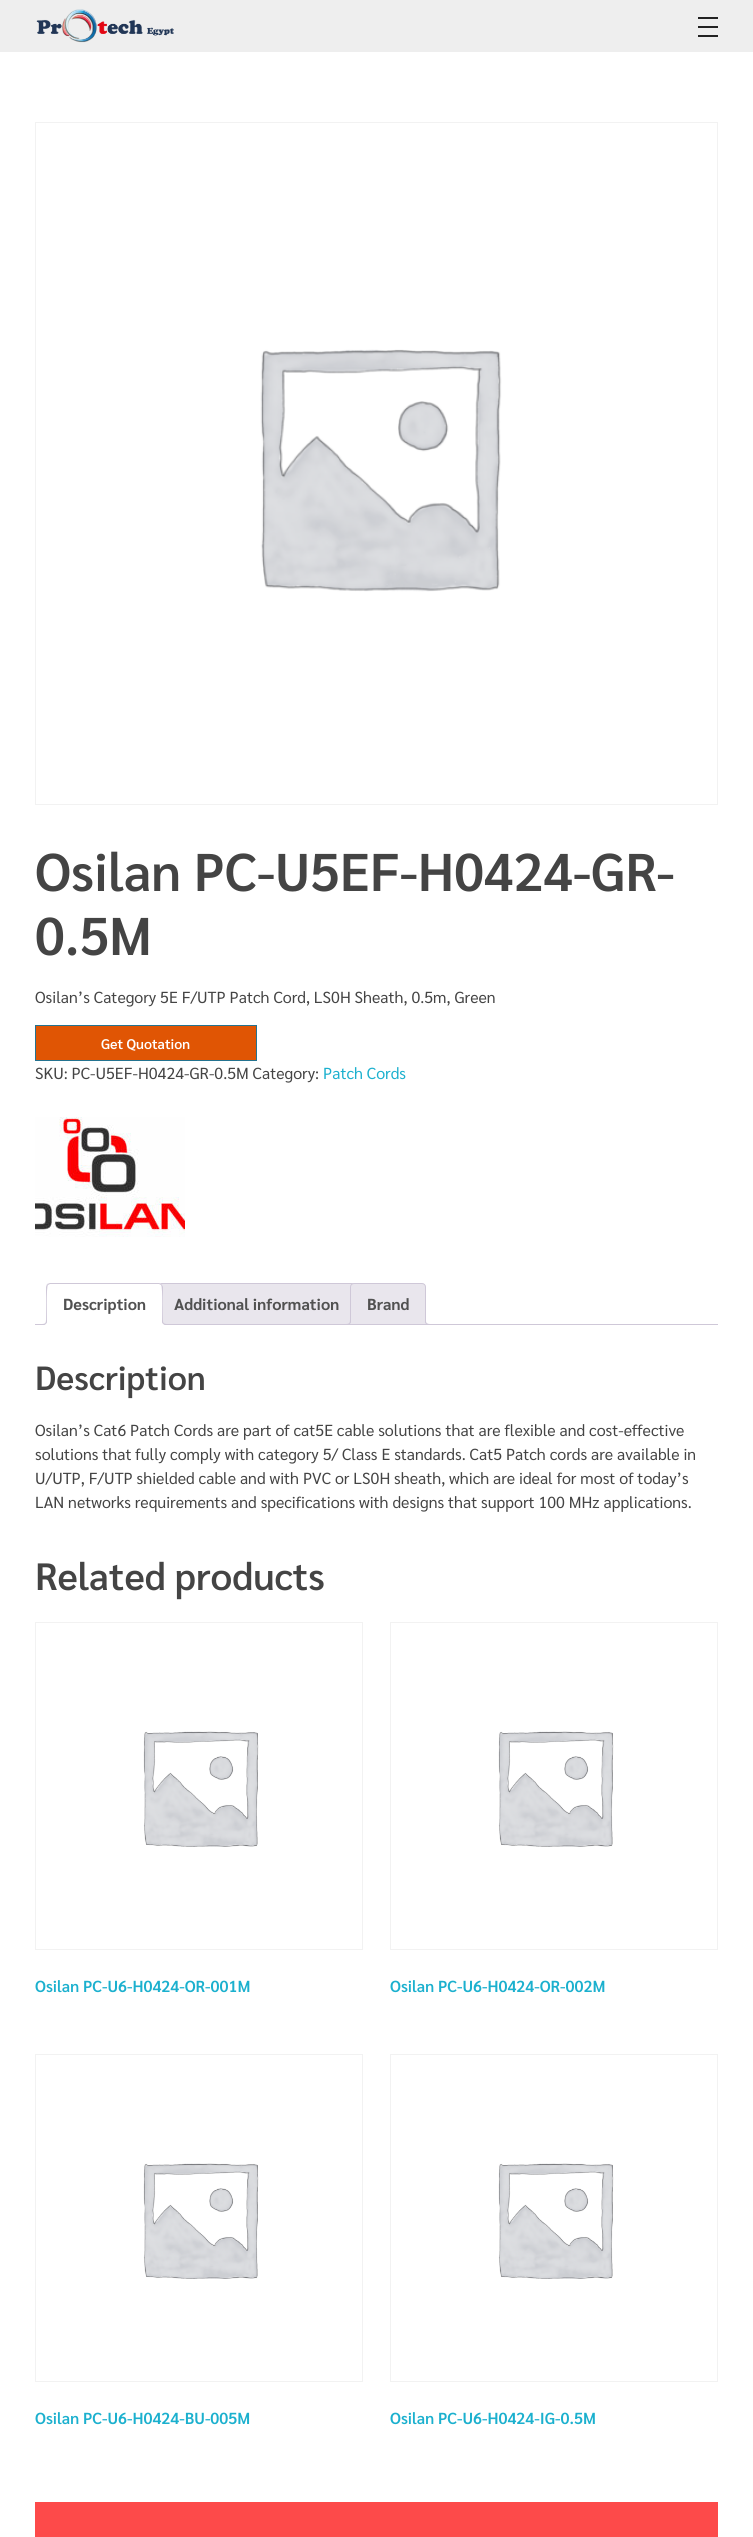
import math
import cairo

surface = cairo.ImageSurface(cairo.FORMAT_RGB24, 753, 2537)
c = cairo.Context(surface)
options = cairo.FontOptions()
options.set_hint_metrics(cairo.HINT_METRICS_OFF)
options.set_hint_style(cairo.HINT_STYLE_NONE)
c.set_font_options(options)
c.set_miter_limit(4)
def C(code):
 c.set_source_rgb(*(v / 255 for v in bytes.fromhex(code[-6:])))
def F(family, size, italic, bold):
 c.select_font_face(family, cairo.FONT_SLANT_ITALIC if italic else cairo.FONT_SLANT_NORMAL, cairo.FONT_WEIGHT_BOLD if bold else cairo.FONT_WEIGHT_NORMAL)
 c.set_font_size(size)
def T(x, y, s):
 c.move_to(x, y)
 c.show_text(s)
def R(x, y, w, h):
 c.rectangle(x, y, w, h)
 c.fill()
def I(path, x, y, w, h):
 c.save()
 c.set_source_surface(cairo.ImageSurface.create_from_png(path), x, y)
 c.rectangle(x, y, w, h)
 c.fill()
 c.restore()
C('ffffff')
c.paint()
C('eeeeee')
R(0,0,753,52)
I('1.png',36,9,138,34)
C('222222')
R(698,17,20,2)
R(698,26,20,2)
R(698,35,20,2)
c.rectangle(35.5,122.5,682,682)
C('f2f2f2')
c.set_line_width(1)
c.stroke()
I('2.png',260,349,242,243)
F('Sarabun SemiBold',53,0,0)
C('444444')
T(35,891,'Osilan PC-U5EF-H0424-GR-')
T(35,955,'0.5M')
F('Sarabun',16,0,0)
T(35,1003,'Osilan’s Category 5E F/UTP Patch Cord, LS0H Sheath, 0.5m, Green')
C('e05504')
c.rectangle(35.5,1025.5,221,35)
c.fill_preserve()
C('247390')
c.stroke()
F('Sarabun SemiBold',14,0,0)
C('ffffff')
T(101,1049,'Get Quotation')
F('Sarabun',16,0,0)
C('444444')
T(35,1079,'SKU: PC-U5EF-H0424-GR-0.5M Category:')
C('1bb0ce')
T(323,1079,'Patch Cords')
I('3.png',35,1117,150,120)
C('e9e6ed')
c.new_path()
c.move_to(161,1283.5)
c.line_to(352,1283.5)
c.curve_to(354,1283.5,355.5,1285,355.5,1287)
c.line_to(355.5,1324.5)
c.line_to(157.5,1324.5)
c.line_to(157.5,1287)
c.curve_to(157.5,1285,159,1283.5,161,1283.5)
c.close_path()
c.fill_preserve()
C('cfc8d8')
c.stroke()
C('e9e6ed')
c.new_path()
c.move_to(354,1283.5)
c.line_to(422,1283.5)
c.curve_to(424,1283.5,425.5,1285,425.5,1287)
c.line_to(425.5,1324.5)
c.line_to(350.5,1324.5)
c.line_to(350.5,1287)
c.curve_to(350.5,1285,352,1283.5,354,1283.5)
c.close_path()
c.fill_preserve()
C('cfc8d8')
c.stroke()
c.save()
c.rectangle(35,1283,683,42)
c.clip()
C('e9e6ed')
c.new_path()
c.move_to(348,1325)
c.line_to(348,1327)
c.curve_to(351.5,1327,353,1325.5,353,1322)
c.line_to(351,1322)
c.curve_to(350.5,1323.5,349.5,1324.5,348,1325)
c.close_path()
c.fill()
c.restore()
c.set_fill_rule(cairo.FILL_RULE_EVEN_ODD)
c.new_path()
c.move_to(346,1320)
c.line_to(351,1320)
c.curve_to(351,1323.5,349.5,1325,346,1325)
c.close_path()
c.move_to(346,1320)
c.line_to(350,1320)
c.curve_to(350,1323,349,1324,346,1324)
c.close_path()
c.fill()
c.save()
c.set_fill_rule(cairo.FILL_RULE_WINDING)
c.rectangle(35,1283,683,42)
c.clip()
C('e9e6ed')
c.new_path()
c.move_to(423,1322)
c.curve_to(423,1325.5,424.5,1327,428,1327)
c.line_to(428,1325)
c.curve_to(426.5,1324.5,425.5,1323.5,425,1322)
c.close_path()
c.fill()
c.restore()
c.new_path()
c.move_to(425,1320)
c.line_to(430,1320)
c.line_to(430,1325)
c.curve_to(427.5,1325,425,1324,425,1321)
c.close_path()
c.move_to(426,1320)
c.line_to(430,1320)
c.line_to(430,1324)
c.curve_to(428,1324,426,1323.5,426,1321)
c.close_path()
c.fill()
R(35,1324,683,1)
C('ffffff')
c.new_path()
c.move_to(50,1283)
c.line_to(159,1283)
c.curve_to(161,1283,163,1285,163,1287)
c.line_to(163,1325)
c.line_to(46,1325)
c.line_to(46,1287)
c.curve_to(46,1285,48,1283,50,1283)
c.close_path()
c.fill()
C('cfc8d8')
c.set_fill_rule(cairo.FILL_RULE_WINDING)
c.new_path()
c.move_to(50,1283)
c.line_to(47,1284)
c.line_to(48,1285)
c.line_to(50,1284)
c.line_to(159,1284)
c.line_to(161,1285)
c.line_to(162,1284)
c.line_to(159,1283)
c.close_path()
c.fill()
c.new_path()
c.move_to(163,1325)
c.line_to(163,1287)
c.curve_to(163,1286,162,1285,162,1284)
c.line_to(161,1285)
c.curve_to(163,1287,162,1319,162,1324)
c.close_path()
c.fill()
C('ffffff')
c.new_path()
c.move_to(163,1325)
c.line_to(162,1324)
c.line_to(47,1324)
c.line_to(46,1325)
c.close_path()
c.fill()
C('cfc8d8')
c.new_path()
c.move_to(46,1325)
c.line_to(47,1324)
c.curve_to(47,1319,46,1287,48,1285)
c.line_to(47,1284)
c.line_to(46,1287)
c.close_path()
c.fill()
F('Sarabun',16,0,1)
C('515151')
T(63,1310,'Description')
c.save()
c.rectangle(35,1283,683,42)
c.clip()
C('ffffff')
c.new_path()
c.move_to(44,1325)
c.line_to(44,1327)
c.curve_to(47.5,1327,49,1325.5,49,1322)
c.line_to(47,1322)
c.curve_to(46.5,1323.5,45.5,1324.5,44,1325)
c.close_path()
c.fill()
c.restore()
C('cfc8d8')
c.set_fill_rule(cairo.FILL_RULE_EVEN_ODD)
c.new_path()
c.move_to(42,1320)
c.line_to(47,1320)
c.curve_to(47,1323.5,45.5,1325,42,1325)
c.close_path()
c.move_to(42,1320)
c.line_to(46,1320)
c.curve_to(46,1323,45,1324,42,1324)
c.close_path()
c.fill()
c.save()
c.set_fill_rule(cairo.FILL_RULE_WINDING)
c.rectangle(35,1283,683,42)
c.clip()
C('ffffff')
c.new_path()
c.move_to(160,1322)
c.curve_to(160,1325.5,161.5,1327,165,1327)
c.line_to(165,1325)
c.curve_to(163.5,1324.5,162.5,1323.5,162,1322)
c.close_path()
c.fill()
c.restore()
c.new_path()
c.move_to(162,1320)
c.line_to(167,1320)
c.line_to(167,1325)
c.curve_to(164.5,1325,162,1324,162,1321)
c.close_path()
c.move_to(163,1320)
c.line_to(167,1320)
c.line_to(167,1324)
c.curve_to(165,1324,163,1323.5,163,1321)
c.close_path()
c.fill()
C('515151')
T(174,1310,'Additional information')
T(367,1310,'Brand')
F('Sarabun SemiBold',33.5,0,0)
C('444444')
T(35,1390,'Description')
F('Sarabun',16,0,0)
T(35,1436,'Osilan’s Cat6 Patch Cords are part of cat5E cable solutions that are flexible and cost-effective')
T(35,1460,'solutions that fully comply with category 5/ Class E standards. Cat5 Patch cords are available in')
T(35,1484,'U/UTP, F/UTP shielded cable and with PVC or LS0H sheath, which are ideal for most of today’s')
T(35,1508,'LAN networks requirements and specifications with designs that support 100 MHz applications.')
F('Sarabun SemiBold',38,0,0)
T(35,1590,'Related products')
c.rectangle(35.5,1622.5,327,327)
C('f2f2f2')
c.stroke()
I('4.png',143,1731,116,116)
F('Sarabun SemiBold',16,0,0)
C('1bb0ce')
T(35,1992,'Osilan PC-U6-H0424-OR-001M')
c.rectangle(390.5,1622.5,327,327)
C('f2f2f2')
c.stroke()
I('4.png',498,1731,116,116)
C('1bb0ce')
T(390,1992,'Osilan PC-U6-H0424-OR-002M')
c.rectangle(35.5,2054.5,327,327)
C('f2f2f2')
c.stroke()
I('4.png',143,2163,116,116)
C('1bb0ce')
T(35,2424,'Osilan PC-U6-H0424-BU-005M')
c.rectangle(390.5,2054.5,327,327)
C('f2f2f2')
c.stroke()
I('4.png',498,2163,116,116)
C('1bb0ce')
T(390,2424,'Osilan PC-U6-H0424-IG-0.5M')
C('fd4a4a')
R(35,2502,683,35)
surface.write_to_png('o.png')
